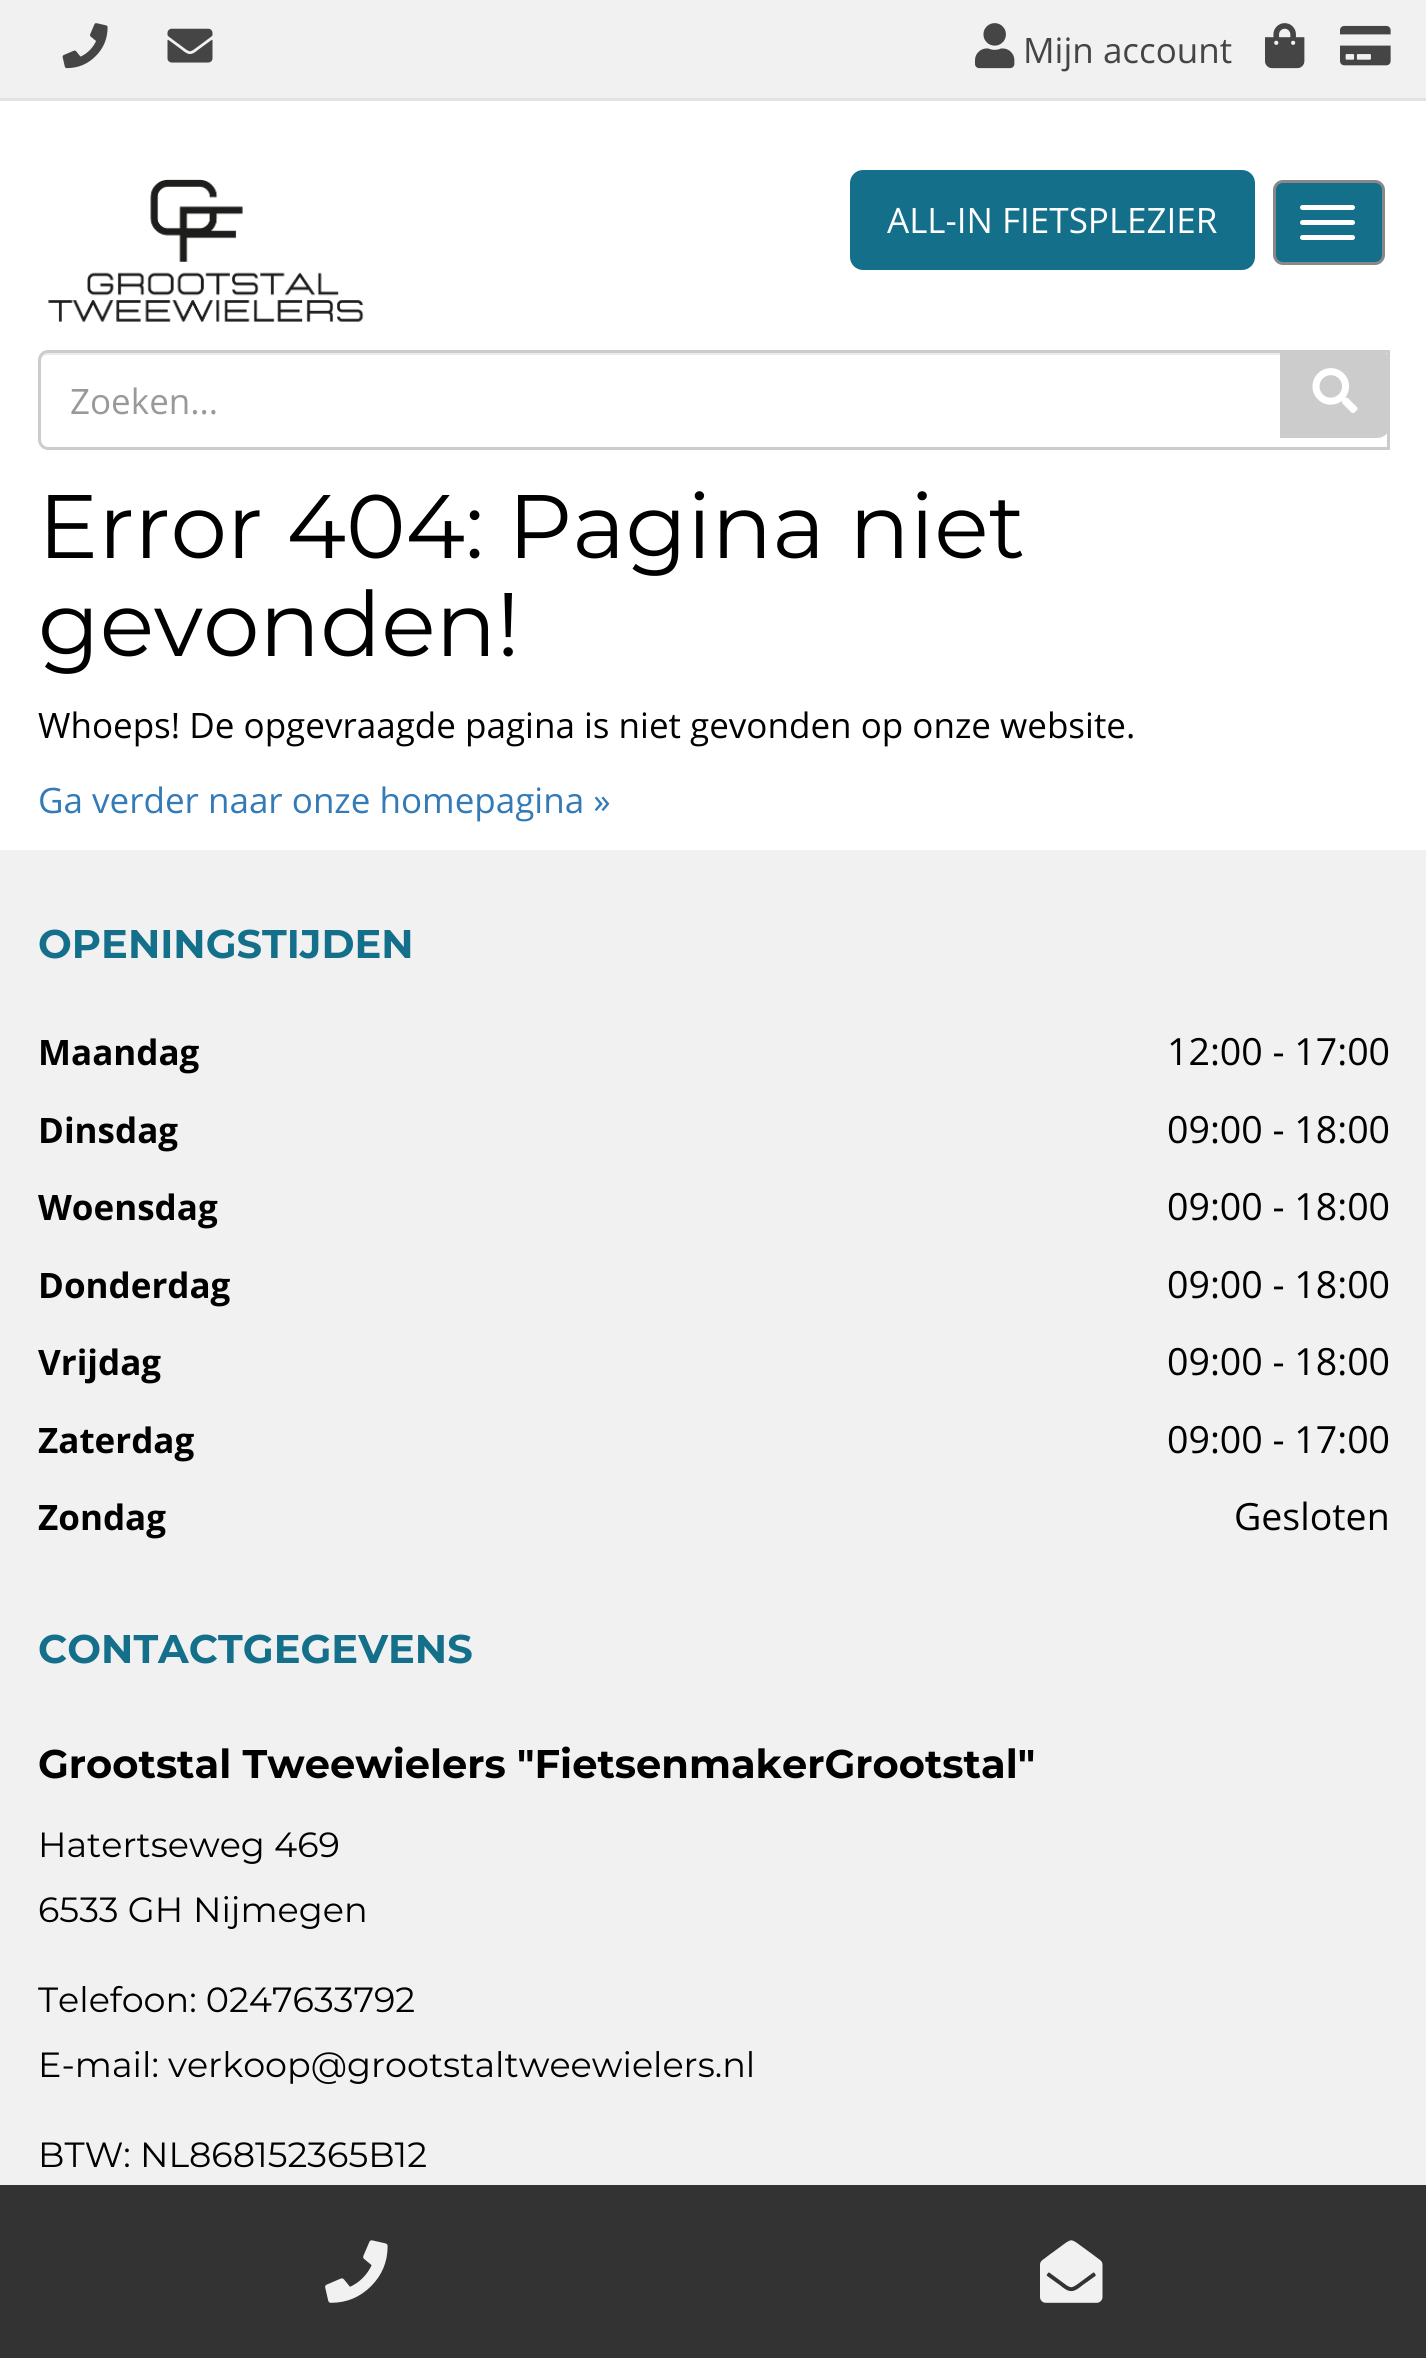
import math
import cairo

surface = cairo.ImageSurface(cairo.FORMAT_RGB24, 1426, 2358)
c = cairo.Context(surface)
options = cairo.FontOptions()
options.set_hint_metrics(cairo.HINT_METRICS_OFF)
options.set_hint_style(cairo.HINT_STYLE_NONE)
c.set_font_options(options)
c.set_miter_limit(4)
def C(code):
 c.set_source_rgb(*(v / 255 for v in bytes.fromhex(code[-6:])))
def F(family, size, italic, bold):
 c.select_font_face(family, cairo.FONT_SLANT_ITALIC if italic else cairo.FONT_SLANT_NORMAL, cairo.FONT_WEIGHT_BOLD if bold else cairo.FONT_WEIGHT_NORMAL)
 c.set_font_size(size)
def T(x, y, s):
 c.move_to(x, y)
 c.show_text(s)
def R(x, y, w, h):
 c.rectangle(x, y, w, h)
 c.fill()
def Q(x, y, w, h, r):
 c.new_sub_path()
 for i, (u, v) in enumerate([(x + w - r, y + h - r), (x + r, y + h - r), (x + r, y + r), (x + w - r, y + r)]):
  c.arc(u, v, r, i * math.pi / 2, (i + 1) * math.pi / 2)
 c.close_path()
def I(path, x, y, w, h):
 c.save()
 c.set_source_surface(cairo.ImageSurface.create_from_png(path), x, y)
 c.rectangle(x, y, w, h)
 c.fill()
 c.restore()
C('ffffff')
c.paint()
C('f1f1f1')
R(0,0,1426,98)
C('e2e2e2')
R(0,98,1426,3)
I('1.png',62,23,46,46)
I('2.png',167,28,46,35)
I('3.png',975,23,40,46)
F('Open Sans',35,0,0)
C('454545')
T(1023,63,'Mijn account')
I('4.png',1265,23,40,46)
I('5.png',1340,25,51,41)
I('6.png',48,179,316,143)
C('136f8a')
Q(850,170,405,100,13)
c.fill()
C('ffffff')
T(887,233,'ALL-IN FIETSPLEZIER')
C('136f8a')
Q(1274.5,181.5,109,82,8.5)
c.fill_preserve()
C('888888')
c.set_line_width(3)
c.stroke()
C('ffffff')
Q(1300,205,55,5,2.5)
c.fill()
Q(1300,220,55,5,2.5)
c.fill()
Q(1300,235,55,5,2.5)
c.fill()
c.new_path()
c.move_to(48,351.5)
c.line_to(1281.5,351.5)
c.line_to(1281.5,433.5)
c.line_to(48,433.5)
c.curve_to(43.5,433.5,39.5,429.5,39.5,425)
c.line_to(39.5,360)
c.curve_to(39.5,355.5,43.5,351.5,48,351.5)
c.close_path()
C('cccccc')
c.stroke()
C('ffffff')
c.new_path()
c.move_to(48,350)
c.line_to(1390,350)
c.line_to(1390,450)
c.line_to(48,450)
c.curve_to(42.5,450,38,445.5,38,440)
c.line_to(38,360)
c.curve_to(38,354.5,42.5,350,48,350)
c.close_path()
c.fill()
C('ececec')
c.new_path()
c.move_to(48,355)
c.line_to(1388,355)
c.line_to(1388,353)
c.line_to(48,353)
c.curve_to(43,353,40,357,40,362)
c.curve_to(40,358,43,355,48,355)
c.close_path()
c.fill()
c.new_path()
c.move_to(48,351.5)
c.line_to(1388.5,351.5)
c.line_to(1388.5,448.5)
c.line_to(48,448.5)
c.curve_to(43.5,448.5,39.5,444.5,39.5,440)
c.line_to(39.5,360)
c.curve_to(39.5,355.5,43.5,351.5,48,351.5)
c.close_path()
C('cccccc')
c.stroke()
c.new_path()
c.move_to(1281.5,351.5)
c.line_to(1377,351.5)
c.curve_to(1383.5,351.5,1388.5,356.5,1388.5,363)
c.line_to(1388.5,425)
c.curve_to(1388.5,431.5,1383.5,436.5,1377,436.5)
c.line_to(1281.5,436.5)
c.close_path()
c.fill_preserve()
c.stroke()
I('7.png',1312,368,46,45)
C('999999')
T(70,414,'Zoeken...')
F('Montserrat',90,0,0)
C('000000')
T(38,558,'Error 404: Pagina niet')
T(38,656,'gevonden!')
F('Open Sans',35,0,0)
T(38,738,'Whoeps! De opgevraagde pagina is niet gevonden op onze website.')
C('337ab7')
T(38,813,'Ga verder naar onze homepagina »')
C('f1f1f1')
R(0,850,1426,1335)
F('Montserrat',40,0,1)
C('136f8a')
T(38,958,'OPENINGSTIJDEN')
F('Open Sans',35,0,1)
C('000000')
T(38,1065,'Maandag')
F('Open Sans',37.5,0,0)
T(1167,1065,'12:00 - 17:00')
F('Open Sans',35,0,1)
T(38,1143,'Dinsdag')
F('Open Sans',37.5,0,0)
T(1167,1143,'09:00 - 18:00')
F('Open Sans',35,0,1)
T(38,1220,'Woensdag')
F('Open Sans',37.5,0,0)
T(1167,1220,'09:00 - 18:00')
F('Open Sans',35,0,1)
T(38,1298,'Donderdag')
F('Open Sans',37.5,0,0)
T(1167,1298,'09:00 - 18:00')
F('Open Sans',35,0,1)
T(38,1375,'Vrijdag')
F('Open Sans',37.5,0,0)
T(1167,1375,'09:00 - 18:00')
F('Open Sans',35,0,1)
T(38,1453,'Zaterdag')
F('Open Sans',37.5,0,0)
T(1167,1453,'09:00 - 17:00')
F('Open Sans',35,0,1)
T(38,1530,'Zondag')
F('Open Sans',37.5,0,0)
T(1234,1530,'Gesloten')
F('Montserrat',40,0,1)
C('136f8a')
T(38,1663,'CONTACTGEGEVENS')
C('000000')
T(38,1778,'Grootstal Tweewielers "FietsenmakerGrootstal"')
F('Montserrat',35,0,0)
T(38,1857,'Hatertseweg 469')
T(38,1922,'6533 GH')
T(193,1922,'Nijmegen')
T(38,2012,'Telefoon: 0247633792')
T(38,2077,'E-mail: verkoop@grootstaltweewielers.nl')
T(38,2167,'BTW: NL868152365B12')
C('333333')
R(0,2185,1426,173)
I('8.png',325,2240,63,63)
I('9.png',1040,2240,63,63)
surface.write_to_png('o.png')
